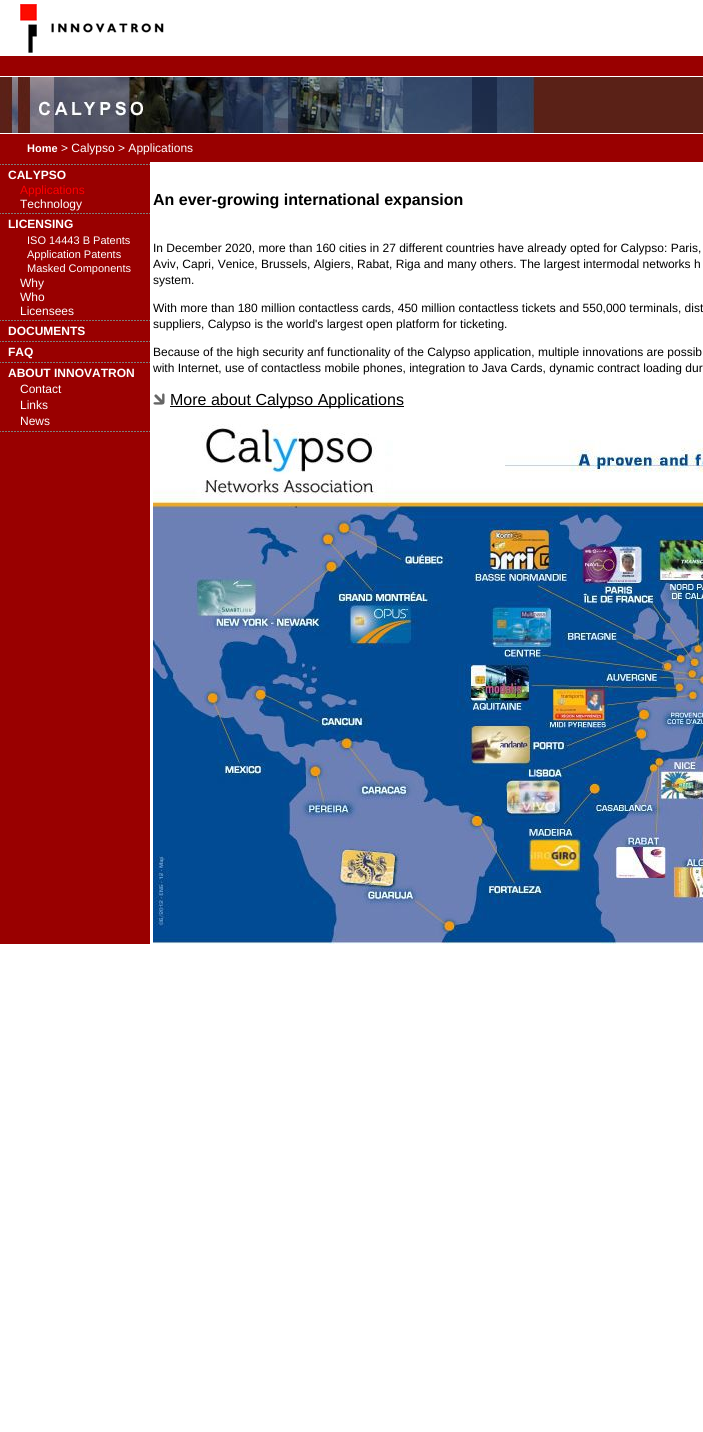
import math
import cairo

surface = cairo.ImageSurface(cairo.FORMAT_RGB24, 703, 1432)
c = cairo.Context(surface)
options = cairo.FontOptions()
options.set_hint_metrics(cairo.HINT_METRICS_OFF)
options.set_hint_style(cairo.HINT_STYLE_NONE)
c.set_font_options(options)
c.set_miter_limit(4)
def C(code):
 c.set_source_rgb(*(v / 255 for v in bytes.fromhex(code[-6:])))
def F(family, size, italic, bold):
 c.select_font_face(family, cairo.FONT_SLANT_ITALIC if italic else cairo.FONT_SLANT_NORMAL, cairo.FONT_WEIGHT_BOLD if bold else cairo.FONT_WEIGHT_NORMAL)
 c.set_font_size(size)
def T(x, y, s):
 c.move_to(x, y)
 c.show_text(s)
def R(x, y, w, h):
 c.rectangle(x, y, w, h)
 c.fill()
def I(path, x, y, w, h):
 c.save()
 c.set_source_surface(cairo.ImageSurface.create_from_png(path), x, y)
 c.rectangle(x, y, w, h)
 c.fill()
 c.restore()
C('ffffff')
c.paint()
I('1.png',20,4,144,49)
C('990000')
R(0,56,703,20)
C('5a2117')
R(536,77,167,56)
I('2.png',0,77,536,56)
C('990000')
R(0,134,703,28)
F('Liberation Sans',11,0,1)
C('ffffff')
T(27,152,'Home')
F('Liberation Sans',12,0,0)
T(61,152,'> Calypso > Applications')
C('990000')
R(0,162,150,782)
I('3.png',0,164,150,1)
F('Liberation Sans',12,0,1)
C('ffffff')
T(8,179,'CALYPSO')
F('Liberation Sans',12,0,0)
C('ff0000')
T(20,194,'Applications')
C('ffffff')
T(20,208,'Technology')
I('3.png',0,213,150,1)
F('Liberation Sans',12,0,1)
T(8,228,'LICENSING')
F('Liberation Sans',11,0,0)
T(27,244,'ISO 14443 B Patents')
T(27,258,'Application Patents')
T(27,272,'Masked Components')
F('Liberation Sans',12,0,0)
T(20,287,'Why')
T(20,301,'Who')
T(20,315,'Licensees')
I('3.png',0,320,150,1)
F('Liberation Sans',12,0,1)
T(8,335,'DOCUMENTS')
I('3.png',0,341,150,1)
T(8,356,'FAQ')
I('3.png',0,362,150,1)
T(8,377,'ABOUT INNOVATRON')
F('Liberation Sans',12,0,0)
T(20,393,'Contact')
T(20,409,'Links')
T(20,425,'News')
I('3.png',0,431,150,1)
F('Liberation Sans',16,0,1)
C('000000')
T(153,205,'An ever-growing international expansion')
F('Liberation Sans',12,0,0)
T(153,252,'In December 2020, more than 160 cities in 27 different countries have already opted for Calypso: Paris,')
T(153,268,'Aviv, Capri, Venice, Brussels, Algiers, Rabat, Riga and many others. The largest intermodal networks h')
T(153,284,'system.')
T(153,312,'With more than 180 million contactless cards, 450 million contactless tickets and 550,000 terminals, dist')
T(153,328,'suppliers, Calypso is the world\'s largest open platform for ticketing.')
T(153,356,'Because of the high security anf functionality of the Calypso application, multiple innovations are possib')
T(153,372,'with Internet, use of contactless mobile phones, integration to Java Cards, dynamic contract loading dur')
I('4.png',153,393,12,12)
R(170,406,234,1)
F('Liberation Sans',16,0,0)
T(170,405,'More about Calypso Applications')
I('5.png',153,424,550,520)
surface.write_to_png('o.png')
